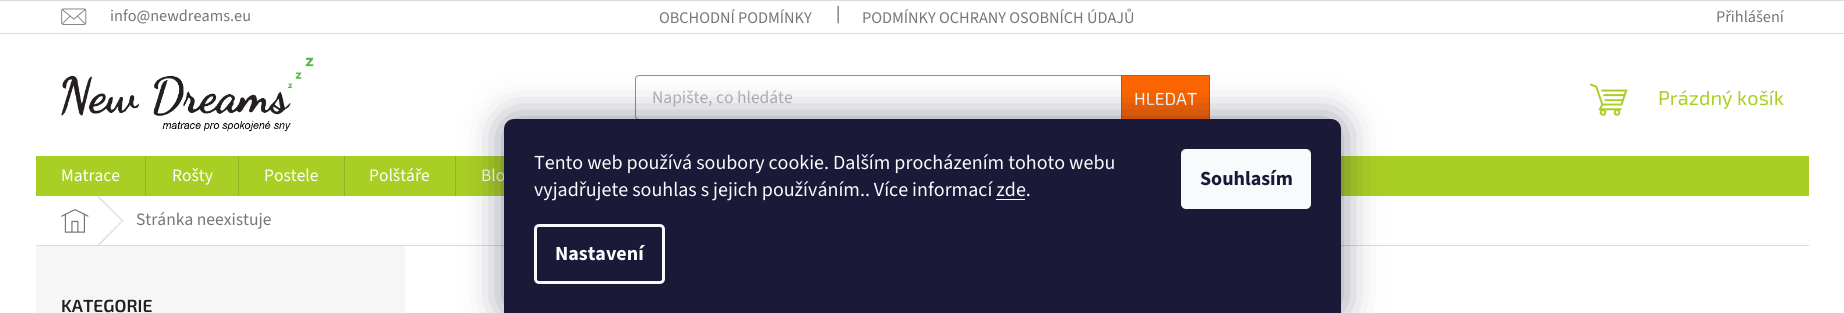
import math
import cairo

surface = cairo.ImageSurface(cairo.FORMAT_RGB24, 1844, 313)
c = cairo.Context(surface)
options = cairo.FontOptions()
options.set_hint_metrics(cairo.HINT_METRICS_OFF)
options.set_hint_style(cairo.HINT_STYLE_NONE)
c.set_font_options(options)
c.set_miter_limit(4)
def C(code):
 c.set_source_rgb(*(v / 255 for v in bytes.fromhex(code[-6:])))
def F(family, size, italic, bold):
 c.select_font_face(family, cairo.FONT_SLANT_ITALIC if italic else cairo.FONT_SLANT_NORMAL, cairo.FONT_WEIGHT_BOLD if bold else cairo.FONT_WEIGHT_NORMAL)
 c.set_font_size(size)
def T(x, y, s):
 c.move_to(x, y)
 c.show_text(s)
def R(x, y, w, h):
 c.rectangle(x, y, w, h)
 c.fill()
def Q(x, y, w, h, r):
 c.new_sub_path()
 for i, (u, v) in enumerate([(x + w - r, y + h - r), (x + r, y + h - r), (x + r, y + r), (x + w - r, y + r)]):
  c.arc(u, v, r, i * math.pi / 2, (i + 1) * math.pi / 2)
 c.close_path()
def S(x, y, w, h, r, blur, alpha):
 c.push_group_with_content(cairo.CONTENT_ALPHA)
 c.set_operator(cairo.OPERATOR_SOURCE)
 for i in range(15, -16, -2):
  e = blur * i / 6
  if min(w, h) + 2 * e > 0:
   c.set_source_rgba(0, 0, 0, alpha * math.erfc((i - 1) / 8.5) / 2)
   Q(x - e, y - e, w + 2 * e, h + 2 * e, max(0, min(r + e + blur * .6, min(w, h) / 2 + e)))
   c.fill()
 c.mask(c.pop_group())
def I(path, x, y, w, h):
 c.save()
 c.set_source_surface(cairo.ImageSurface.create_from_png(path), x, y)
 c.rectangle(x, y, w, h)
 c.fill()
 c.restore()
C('ffffff')
c.paint()
C('dadada')
R(0,0,1844,1)
R(0,33,1844,1)
I('1.png',61,8,26,17)
F('Source Sans 3',16.25,0,0)
C('767676')
T(110,21,'info@newdreams.eu')
T(659,23,'OBCHODNÍ PODMÍNKY')
F('Source Sans 3',17.5,0,0)
C('4d4d4d')
T(836,19,'|')
F('Source Sans 3',16.25,0,0)
C('767676')
T(862,23,'PODMÍNKY OCHRANY OSOBNÍCH ÚDAJŮ')
T(1716,22,'Přihlášení')
I('2.png',61,57,253,75)
Q(635.5,75.5,574,44,3.5)
C('919191')
c.set_line_width(1)
c.stroke()
F('Source Sans 3',17.5,0,0)
C('b6b6b6')
T(652,103,'Napište, co hledáte')
C('ff6600')
c.rectangle(1121.5,75.5,88,44)
c.fill_preserve()
C('ff3c00')
c.stroke()
F('Exo 2',17.5,0,0)
C('ffffff')
T(1134,105,'HLEDAT')
I('3.png',1590,83,38,33)
F('Exo 2',20,0,0)
C('aacf24')
T(1658,105,'Prázdný košík')
R(36,156,1773,40)
F('Source Sans 3',17.5,0,0)
C('ffffff')
T(61,181,'Matrace')
C('92b21f')
R(145,156,1,40)
C('ffffff')
T(172,181,'Rošty')
C('92b21f')
R(238,156,1,40)
C('ffffff')
T(264,181,'Postele')
C('92b21f')
R(344,156,1,40)
C('ffffff')
T(369,181,'Polštáře')
C('92b21f')
R(455,156,1,40)
C('ffffff')
T(481,181,'Blo')
C('dadada')
R(36,245,1773,1)
I('4.png',61,209,28,24)
c.new_path()
c.move_to(97.5,197)
c.line_to(98.5,196)
c.line_to(123.5,221)
c.line_to(123,222)
c.close_path()
c.fill()
c.new_path()
c.move_to(123,219.5)
c.line_to(123.5,220.5)
c.line_to(98.5,246)
c.line_to(97.5,245)
c.close_path()
c.fill()
C('767676')
T(136,225,'Stránka neexistuje')
C('f6f6f6')
R(36,246,369,67)
F('Exo 2 SemiBold',17.5,0,0)
C('1f1f1f')
T(61,312,'KATEGORIE')
C('1b1939')
S(504,119,837,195,10,19,.5)
C('1a1937')
c.new_path()
c.move_to(514,119)
c.line_to(1331,119)
c.curve_to(1336.5,119,1341,123.5,1341,129)
c.line_to(1341,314)
c.line_to(504,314)
c.line_to(504,129)
c.curve_to(504,123.5,508.5,119,514,119)
c.close_path()
c.fill()
F('Source Sans 3',20,0,0)
C('f8fafb')
T(534,169,'Tento web používá soubory cookie. Dalším procházením tohoto webu')
T(534,196,'vyjadřujete souhlas s jejich používáním.. Více informací zde.')
R(996,199,29,1)
Q(535.5,225.5,128,57,3.5)
c.set_line_width(3)
c.stroke()
F('Source Sans 3',20,0,1)
T(555,260,'Nastavení')
Q(1181,149,130,60,5)
c.fill()
C('1a1937')
T(1200,185,'Souhlasím')
surface.write_to_png('o.png')
